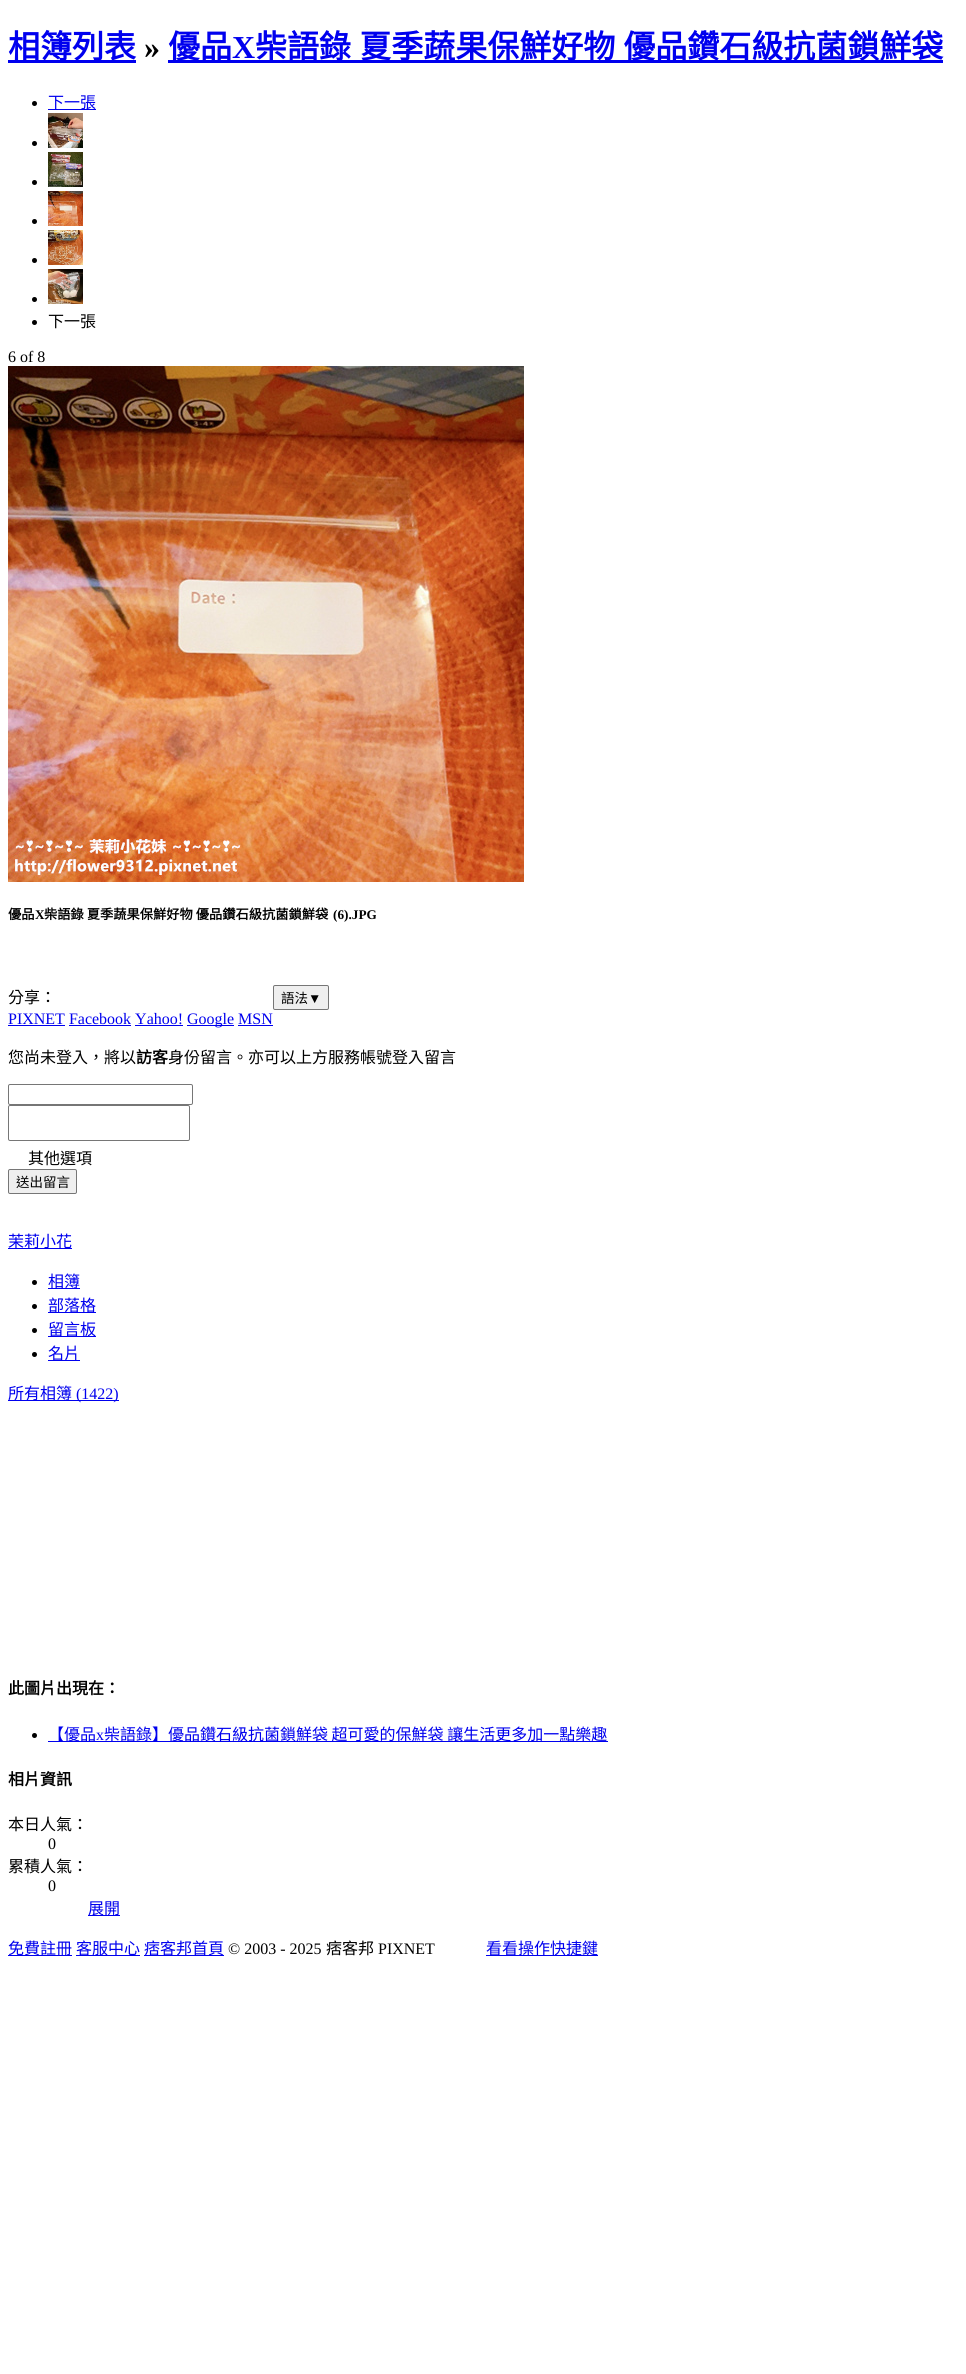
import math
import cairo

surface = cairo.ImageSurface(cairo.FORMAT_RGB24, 966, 2374)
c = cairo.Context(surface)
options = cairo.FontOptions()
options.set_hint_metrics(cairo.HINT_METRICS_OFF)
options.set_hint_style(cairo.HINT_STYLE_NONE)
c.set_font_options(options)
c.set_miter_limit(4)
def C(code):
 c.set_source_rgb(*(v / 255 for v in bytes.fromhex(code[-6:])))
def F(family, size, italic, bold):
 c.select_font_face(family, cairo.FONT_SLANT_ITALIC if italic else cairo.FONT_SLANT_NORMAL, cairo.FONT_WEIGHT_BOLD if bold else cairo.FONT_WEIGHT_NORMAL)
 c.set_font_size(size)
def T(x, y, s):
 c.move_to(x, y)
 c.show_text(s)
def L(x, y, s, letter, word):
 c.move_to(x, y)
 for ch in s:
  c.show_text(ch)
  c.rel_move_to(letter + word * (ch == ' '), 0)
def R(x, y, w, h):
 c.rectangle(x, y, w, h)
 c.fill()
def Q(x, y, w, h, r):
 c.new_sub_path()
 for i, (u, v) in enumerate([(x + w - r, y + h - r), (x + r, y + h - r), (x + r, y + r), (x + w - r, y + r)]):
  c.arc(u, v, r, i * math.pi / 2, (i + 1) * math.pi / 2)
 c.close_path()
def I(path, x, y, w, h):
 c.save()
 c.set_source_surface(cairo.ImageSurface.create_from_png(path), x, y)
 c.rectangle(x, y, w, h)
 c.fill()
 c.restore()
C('ffffff')
c.paint()
C('0000ee')
R(8,60,128,3)
F('Noto Sans CJK TC',32,0,1)
T(8,58,'相簿列表')
F('Liberation Serif',32,0,1)
C('000000')
T(144,58,'»')
C('0000ee')
R(168,60,775,3)
F('Noto Sans CJK TC',32,0,1)
T(168,58,'優品')
F('Liberation Serif',32,0,1)
T(232,58,'X')
F('Noto Sans CJK TC',32,0,1)
L(255,58,'柴語錄 夏季蔬果保鮮好物 優品鑽石級抗菌鎖鮮袋',0,1)
C('000000')
c.new_path()
c.arc(34.5,103.5,2.5,0,2 * math.pi)
c.fill()
C('0000ee')
R(48,109,48,1)
F('Noto Sans CJK TC',16,0,0)
T(48,108,'下一張')
C('000000')
c.new_path()
c.arc(34.5,143.5,2.5,0,2 * math.pi)
c.fill()
I('1.png',48,113,35,35)
c.arc(34.5,182.5,2.5,0,2 * math.pi)
c.fill()
I('2.png',48,152,35,35)
c.arc(34.5,221.5,2.5,0,2 * math.pi)
c.fill()
I('3.png',48,191,35,35)
c.arc(34.5,260.5,2.5,0,2 * math.pi)
c.fill()
I('4.png',48,230,35,35)
c.arc(34.5,299.5,2.5,0,2 * math.pi)
c.fill()
I('5.png',48,269,35,35)
c.arc(34.5,322.5,2.5,0,2 * math.pi)
c.fill()
T(48,327,'下一張')
F('Liberation Serif',16,0,0)
T(8,362,'6 of 8')
I('6.png',8,366,516,516)
F('Noto Sans CJK TC',13.25,0,1)
T(8,919,'優品')
F('Liberation Serif',13.25,0,1)
T(35,919,'X')
F('Noto Sans CJK TC',13.25,0,1)
T(44,919,'柴語錄 夏季蔬果保鮮好物 優品鑽石級抗菌鎖鮮袋')
F('Liberation Serif',13.25,0,1)
T(333,919,'(6).JPG')
F('Noto Sans CJK TC',16,0,0)
T(8,1003,'分享：')
C('efefef')
Q(273.5,985.5,55,24,1.5)
c.fill_preserve()
C('767676')
c.set_line_width(1)
c.stroke()
F('Noto Sans CJK TC',13.5,0,0)
C('000000')
T(281,1003,'語法')
F('Liberation Sans',13.5,0,0)
T(308,1003,'▼')
F('Liberation Serif',16,0,0)
C('0000ee')
T(8,1024,'PIXNET Facebook Yahoo!')
R(8,1025,57,1)
R(187,1025,47,1)
T(187,1024,'Google MSN')
R(69,1025,62,1)
R(135,1025,48,1)
R(238,1025,35,1)
F('Noto Sans CJK TC',16,0,0)
C('000000')
T(8,1063,'您尚未登入，將以')
F('Noto Sans CJK TC',16,0,1)
T(136,1063,'訪客')
F('Noto Sans CJK TC',16,0,0)
T(168,1063,'身份留言。亦可以上方服務帳號登入留言')
Q(8.5,1084.5,184,20,1.5)
C('767676')
c.stroke()
Q(8.5,1105.5,181,35,1.5)
c.stroke()
C('000000')
T(28,1164,'其他選項')
C('efefef')
Q(8.5,1169.5,68,24,1.5)
c.fill_preserve()
C('767676')
c.stroke()
F('Noto Sans CJK TC',13.5,0,0)
C('000000')
T(16,1187,'送出留言')
C('0000ee')
R(8,1248,64,1)
F('Noto Sans CJK TC',16,0,0)
T(8,1247,'茉莉小花')
C('000000')
c.new_path()
c.arc(34.5,1282.5,2.5,0,2 * math.pi)
c.fill()
C('0000ee')
R(48,1288,32,1)
T(48,1287,'相簿')
C('000000')
c.new_path()
c.arc(34.5,1306.5,2.5,0,2 * math.pi)
c.fill()
C('0000ee')
R(48,1312,48,1)
T(48,1311,'部落格')
C('000000')
c.new_path()
c.arc(34.5,1330.5,2.5,0,2 * math.pi)
c.fill()
C('0000ee')
R(48,1336,48,1)
T(48,1335,'留言板')
C('000000')
c.new_path()
c.arc(34.5,1354.5,2.5,0,2 * math.pi)
c.fill()
C('0000ee')
R(48,1360,32,1)
T(48,1359,'名片')
R(8,1400,111,1)
T(8,1399,'所有相簿')
F('Liberation Serif',16,0,0)
T(76,1399,'(1422)')
F('Noto Sans CJK TC',16,0,1)
C('000000')
T(8,1694,'此圖片出現在：')
c.new_path()
c.arc(34.5,1735.5,2.5,0,2 * math.pi)
c.fill()
C('0000ee')
R(48,1741,560,1)
F('Noto Sans CJK TC',16,0,0)
T(48,1740,'【優品')
F('Liberation Serif',16,0,0)
T(96,1740,'x')
F('Noto Sans CJK TC',16,0,0)
T(104,1740,'柴語錄】優品鑽石級抗菌鎖鮮袋 超可愛的保鮮袋 讓生活更多加一點樂趣')
F('Noto Sans CJK TC',16,0,1)
C('000000')
T(8,1785,'相片資訊')
F('Noto Sans CJK TC',16,0,0)
T(8,1830,'本日人氣：')
F('Liberation Serif',16,0,0)
T(48,1849,'0')
F('Noto Sans CJK TC',16,0,0)
T(8,1872,'累積人氣：')
F('Liberation Serif',16,0,0)
T(48,1891,'0')
C('0000ee')
R(88,1915,32,1)
F('Noto Sans CJK TC',16,0,0)
T(88,1914,'展開')
R(8,1955,64,1)
T(8,1954,'免費註冊')
R(76,1955,64,1)
T(76,1954,'客服中心')
R(144,1955,80,1)
T(144,1954,'痞客邦首頁')
F('Liberation Serif',16,0,0)
C('000000')
T(228,1954,'© 2003 - 2025')
F('Noto Sans CJK TC',16,0,0)
T(326,1954,'痞客邦')
F('Liberation Serif',16,0,0)
T(378,1954,'PIXNET')
C('0000ee')
R(486,1955,112,1)
F('Noto Sans CJK TC',16,0,0)
T(486,1954,'看看操作快捷鍵')
surface.write_to_png('o.png')
